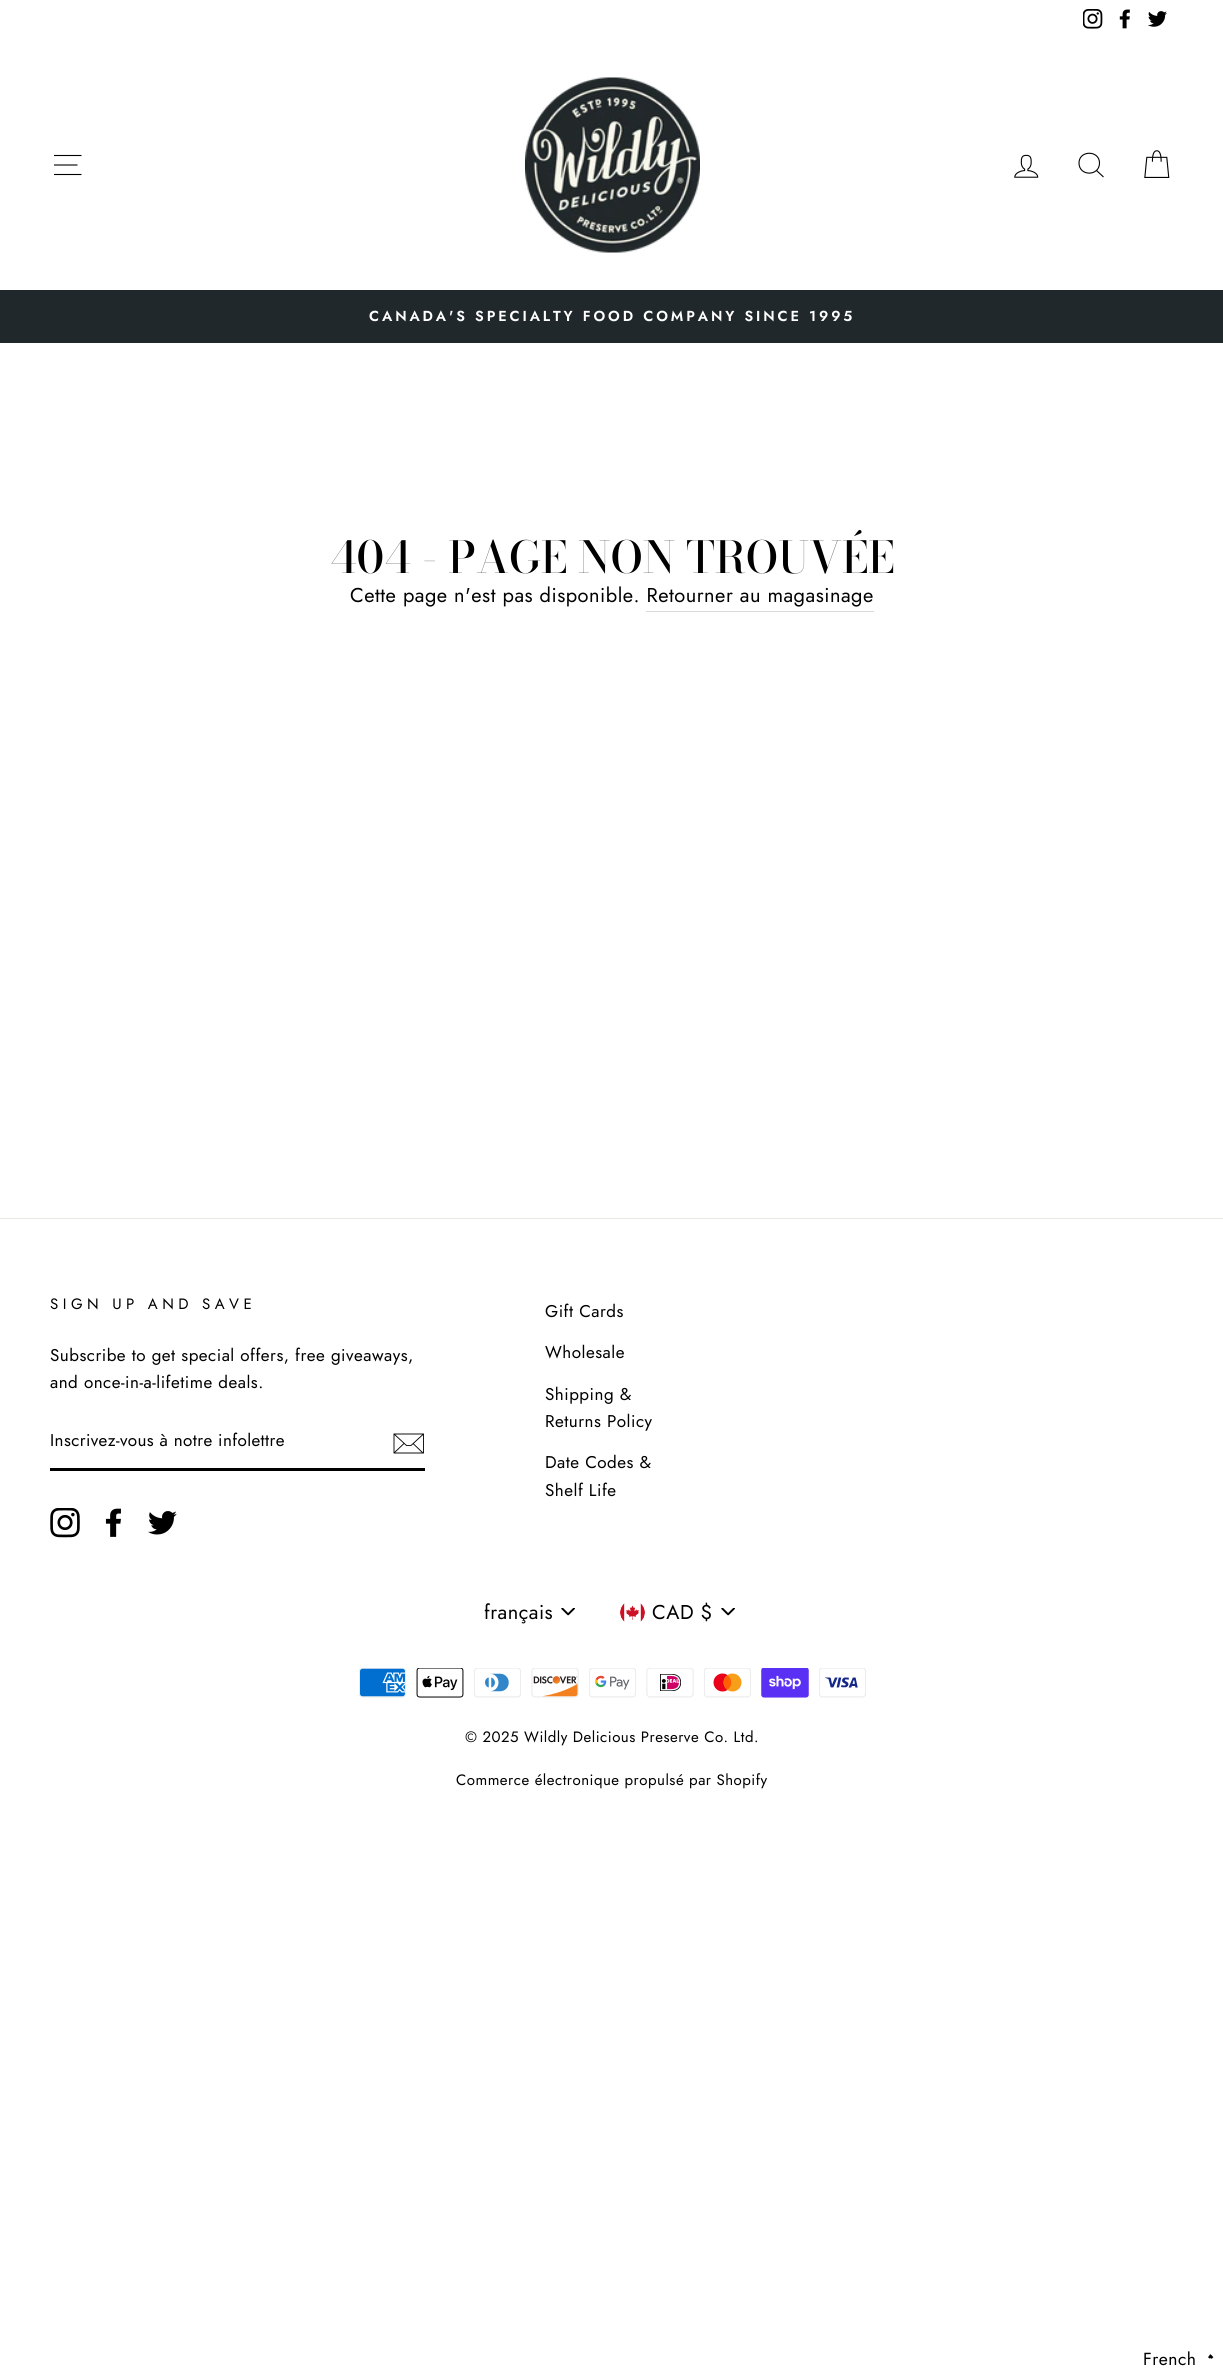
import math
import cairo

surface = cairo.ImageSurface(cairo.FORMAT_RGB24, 1223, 2376)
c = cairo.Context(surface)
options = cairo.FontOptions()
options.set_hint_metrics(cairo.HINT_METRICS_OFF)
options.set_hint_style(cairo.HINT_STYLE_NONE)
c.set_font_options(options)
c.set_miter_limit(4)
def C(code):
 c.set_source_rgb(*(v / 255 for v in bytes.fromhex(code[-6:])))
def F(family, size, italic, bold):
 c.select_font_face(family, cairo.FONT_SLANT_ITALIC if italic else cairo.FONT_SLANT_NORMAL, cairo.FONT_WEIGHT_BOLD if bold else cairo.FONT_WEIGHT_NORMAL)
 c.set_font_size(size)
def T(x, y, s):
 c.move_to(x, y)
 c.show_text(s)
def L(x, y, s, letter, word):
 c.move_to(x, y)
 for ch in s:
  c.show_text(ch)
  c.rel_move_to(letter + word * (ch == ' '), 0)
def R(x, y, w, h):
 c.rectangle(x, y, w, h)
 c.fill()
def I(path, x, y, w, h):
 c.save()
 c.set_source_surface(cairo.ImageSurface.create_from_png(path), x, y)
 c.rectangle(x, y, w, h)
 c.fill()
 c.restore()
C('ffffff')
c.paint()
I('1.png',1083,9,20,20)
I('2.png',1119,9,11,20)
I('3.png',1148,11,19,16)
c.new_path()
c.move_to(54,155.5)
c.line_to(81.5,155.5)
c.move_to(54,165)
c.line_to(77.5,165)
c.move_to(54,174.5)
c.line_to(81.5,174.5)
C('000000')
c.set_line_width(1.1)
c.stroke()
I('4.png',525,77,175,176)
I('5.png',1014,154,25,24)
c.new_path()
c.move_to(1099.5,163)
c.curve_to(1099.5,176.5,1079,176.5,1079,163)
c.curve_to(1079,150,1099.5,150,1099.5,163)
c.close_path()
c.move_to(1103.5,177)
c.line_to(1096.5,170.5)
c.stroke()
I('6.png',1144,150,26,28)
C('21282b')
R(0,290,1223,53)
F('Jost SemiBold',14.45,0,0)
C('ffffff')
L(369,321,'CANADA\'S SPECIALTY FOOD COMPANY SINCE 1995',2.9,0)
F('Bodoni Moda Medium',43.75,0,0)
C('000000')
T(330,573,'404 - PAGE NON TROUVÉE')
F('Jost',20,0,0)
L(350,602,'Cette page n\'est pas disponible. Retourner au magasinage',.5,0)
C('d9d9d9')
R(646,611,228,1)
C('e8e8e1')
R(0,1218,1223,1)
F('Jost',15,0,0)
C('000000')
L(50,1309,'SIGN UP AND SAVE',4.5,0)
F('Jost',17,0,0)
L(50,1361,'Subscribe to get special offers, free giveaways,',.5,0)
L(50,1388,'and once-in-a-lifetime deals.',.5,0)
R(50,1468,375,3)
L(50,1446,'Inscrivez-vous à notre infolettre',.4,0)
c.new_path()
c.move_to(423.5,1453)
c.line_to(394,1453)
c.line_to(394,1434)
c.line_to(423.5,1434)
c.close_path()
c.move_to(394,1434)
c.line_to(406.5,1445.5)
c.line_to(411,1445.5)
c.line_to(423.5,1434)
c.move_to(404,1443.5)
c.line_to(394.5,1452.5)
c.move_to(423,1453)
c.line_to(413,1443.5)
c.set_line_width(.9)
c.stroke()
I('7.png',50,1508,30,30)
I('8.png',105,1508,16,29)
I('9.png',148,1511,29,24)
L(545,1317,'Gift Cards',.5,0)
L(545,1358,'Wholesale',.5,0)
L(545,1400,'Shipping &',.5,0)
L(545,1427,'Returns Policy',.5,0)
L(545,1468,'Date Codes &',.5,0)
L(545,1496,'Shelf Life',.5,0)
I('10.png',561,1608,14,8)
F('Jost',20,0,0)
L(484,1619,'français',.5,0)
I('10.png',721,1608,14,8)
I('11.png',620,1603,25,19)
L(652,1619,'CAD $',.5,0)
I('12.png',359,1668,47,30)
I('13.png',416,1668,48,30)
I('14.png',474,1668,47,30)
I('15.png',531,1668,48,30)
I('16.png',589,1668,47,30)
I('17.png',646,1668,48,30)
I('18.png',704,1668,47,30)
I('19.png',761,1668,48,30)
I('20.png',819,1668,47,30)
F('Jost',15,0,0)
L(465,1742,'© 2025 Wildly Delicious Preserve Co. Ltd.',.5,0)
L(456,1785,'Commerce électronique propulsé par Shopify',.5,0)
F('Jost',17.5,0,0)
L(1143,2365,'French',.5,0)
c.new_path()
c.move_to(1212.5,2358)
c.line_to(1210.5,2356)
c.line_to(1209,2358)
c.set_line_width(2.5)
c.stroke()
surface.write_to_png('o.png')
